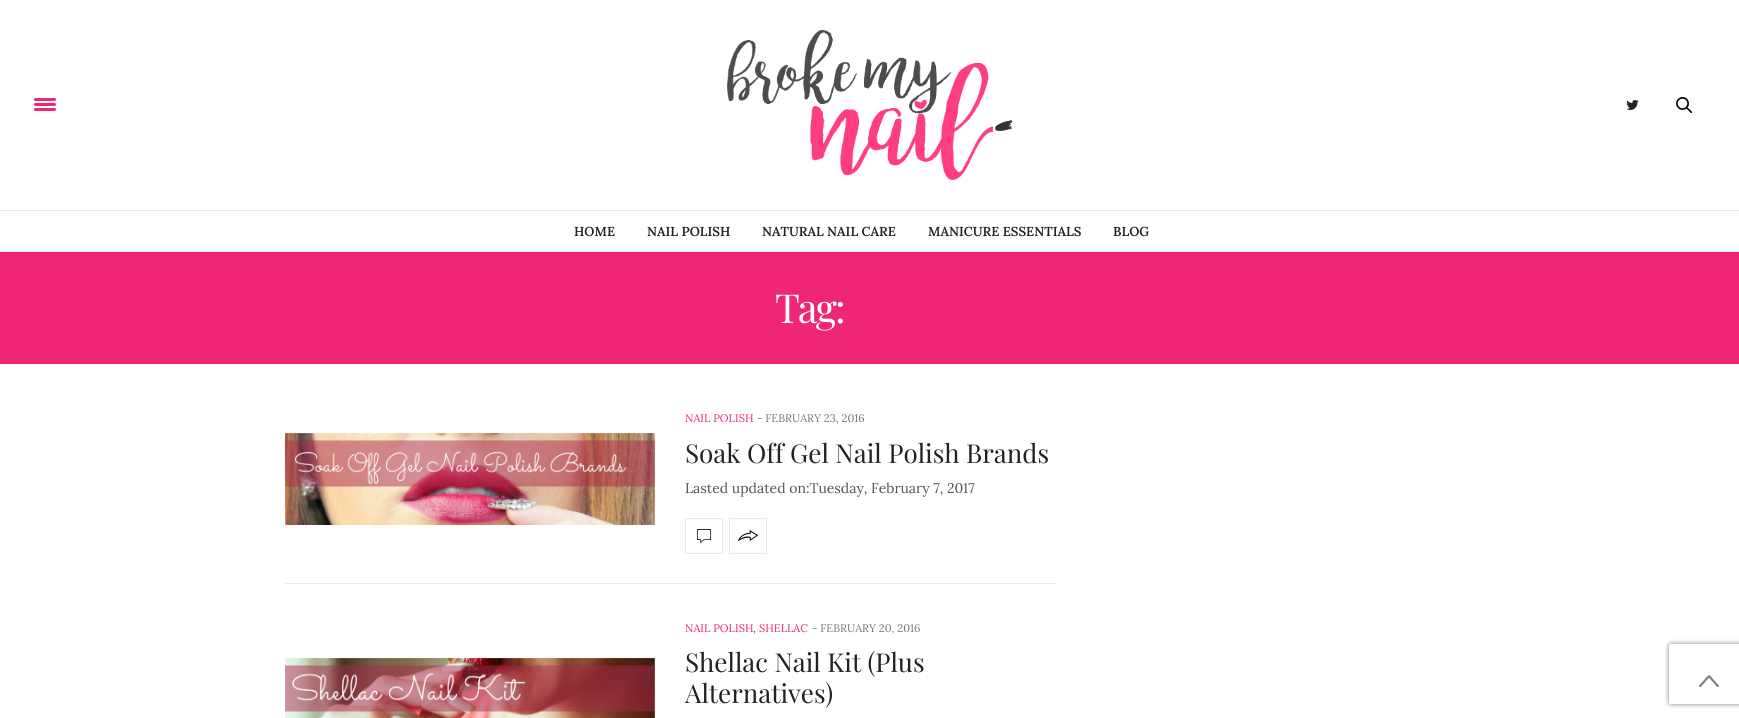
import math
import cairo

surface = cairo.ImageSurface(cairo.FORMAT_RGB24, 1739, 718)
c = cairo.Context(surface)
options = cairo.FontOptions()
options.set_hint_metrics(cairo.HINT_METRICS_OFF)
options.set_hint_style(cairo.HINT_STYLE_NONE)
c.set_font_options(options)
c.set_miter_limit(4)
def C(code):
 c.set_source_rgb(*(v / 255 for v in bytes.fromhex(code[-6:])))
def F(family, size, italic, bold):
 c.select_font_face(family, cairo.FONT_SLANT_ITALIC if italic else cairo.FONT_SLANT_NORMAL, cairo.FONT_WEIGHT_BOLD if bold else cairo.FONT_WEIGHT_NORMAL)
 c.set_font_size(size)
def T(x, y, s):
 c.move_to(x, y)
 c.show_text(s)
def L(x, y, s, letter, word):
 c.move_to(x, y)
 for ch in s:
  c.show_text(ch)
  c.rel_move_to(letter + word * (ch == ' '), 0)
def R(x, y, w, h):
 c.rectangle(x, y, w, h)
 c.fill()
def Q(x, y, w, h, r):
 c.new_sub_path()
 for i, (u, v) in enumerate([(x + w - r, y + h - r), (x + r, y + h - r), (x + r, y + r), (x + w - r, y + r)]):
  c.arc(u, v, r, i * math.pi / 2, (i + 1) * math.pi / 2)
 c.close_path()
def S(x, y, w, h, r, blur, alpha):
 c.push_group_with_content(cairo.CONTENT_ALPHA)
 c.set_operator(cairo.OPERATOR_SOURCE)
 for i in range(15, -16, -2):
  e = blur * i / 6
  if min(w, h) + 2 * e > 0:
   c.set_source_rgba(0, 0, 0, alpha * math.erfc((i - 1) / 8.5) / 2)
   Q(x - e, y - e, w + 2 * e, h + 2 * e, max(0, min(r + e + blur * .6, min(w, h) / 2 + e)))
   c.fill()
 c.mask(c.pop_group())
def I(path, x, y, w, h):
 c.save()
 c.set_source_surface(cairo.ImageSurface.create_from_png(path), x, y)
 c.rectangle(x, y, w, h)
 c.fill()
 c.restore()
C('ffffff')
c.paint()
C('e6e6e6')
R(0,210,1739,1)
C('ef2673')
Q(34,98,22,3,1.5)
c.fill()
Q(34,103,22,3,1.5)
c.fill()
Q(34,108,22,3,1.5)
c.fill()
I('1.png',727,30,285,150)
I('2.png',1626,100,13,10)
I('3.png',1676,97,16,16)
C('e6e6e6')
R(0,251,1739,1)
F('Lora SemiBold',13,0,0)
C('222222')
T(574,236,'HOME')
T(647,236,'NAIL POLISH')
T(762,236,'NATURAL NAIL CARE')
T(928,236,'MANICURE ESSENTIALS')
T(1113,236,'BLOG')
C('ef2673')
R(0,252,1739,112)
F('Playfair Display',40,0,0)
C('ffffff')
L(775,323,'Tag:',-2,0)
C('eaeaea')
R(285,583,770,1)
I('4.png',285,433,370,92)
F('Lora',11,0,0)
C('ef2673')
T(685,422,'NAIL POLISH')
C('767676')
T(757,422,'- FEBRUARY 23, 2016')
F('Playfair Display',26,0,0)
C('222222')
T(685,463,'Soak Off Gel Nail Polish Brands')
F('Lora',14,0,0)
C('545353')
T(685,493,'Lasted updated on:Tuesday, February 7, 2017')
c.rectangle(685.5,518.5,37,35)
C('e9e9e9')
c.set_line_width(1)
c.stroke()
I('5.png',697,529,14,14)
c.rectangle(729.5,518.5,37,35)
c.stroke()
I('6.png',738,530,20,11)
I('7.png',285,658,370,60)
F('Lora',11,0,0)
C('ef2673')
T(685,632,'NAIL POLISH')
C('545353')
T(753,632,',')
C('ef2673')
T(759,632,'SHELLAC')
C('767676')
T(812,632,'- FEBRUARY 20, 2016')
F('Playfair Display',26,0,0)
C('222222')
T(685,672,'Shellac Nail Kit (Plus')
T(685,703,'Alternatives)')
c.save()
c.set_fill_rule(cairo.FILL_RULE_EVEN_ODD)
c.new_path()
c.move_to(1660,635)
c.line_to(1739,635)
c.line_to(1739,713)
c.line_to(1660,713)
c.close_path()
c.move_to(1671,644)
c.line_to(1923,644)
c.curve_to(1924,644,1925,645,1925,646)
c.line_to(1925,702)
c.curve_to(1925,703,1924,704,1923,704)
c.line_to(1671,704)
c.curve_to(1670,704,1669,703,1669,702)
c.line_to(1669,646)
c.curve_to(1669,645,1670,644,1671,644)
c.close_path()
c.clip()
C('808080')
S(1669,644,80,60,2,2.5,1)
c.restore()
I('8.png',1699,675,20,13)
surface.write_to_png('o.png')
